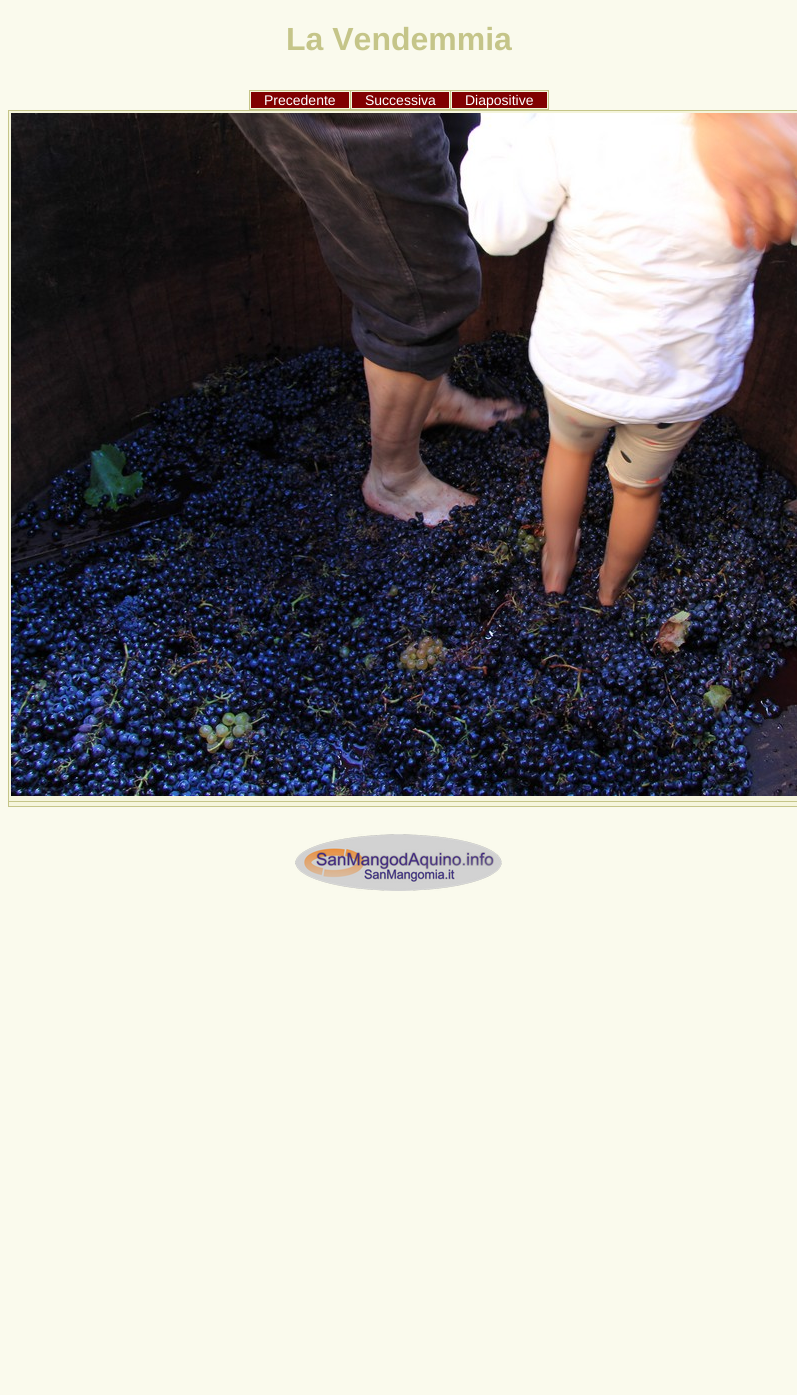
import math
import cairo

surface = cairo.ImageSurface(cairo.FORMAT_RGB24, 797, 1395)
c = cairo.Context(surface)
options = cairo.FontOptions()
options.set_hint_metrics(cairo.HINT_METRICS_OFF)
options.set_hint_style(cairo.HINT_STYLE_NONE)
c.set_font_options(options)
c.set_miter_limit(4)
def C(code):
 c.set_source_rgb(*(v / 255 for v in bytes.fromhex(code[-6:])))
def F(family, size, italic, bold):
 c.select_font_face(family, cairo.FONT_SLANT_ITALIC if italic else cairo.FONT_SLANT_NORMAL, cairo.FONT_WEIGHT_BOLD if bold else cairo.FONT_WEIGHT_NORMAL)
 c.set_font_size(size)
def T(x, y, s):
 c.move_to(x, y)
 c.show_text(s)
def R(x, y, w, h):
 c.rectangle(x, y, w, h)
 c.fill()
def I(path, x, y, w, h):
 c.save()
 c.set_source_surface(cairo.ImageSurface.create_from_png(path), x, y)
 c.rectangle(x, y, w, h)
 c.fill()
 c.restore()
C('fafaed')
c.paint()
F('Liberation Sans',32,0,1)
C('c5c589')
T(286,50,'La Vendemmia')
C('f5f5dc')
R(250,91,298,18)
C('c5c589')
R(249,90,300,1)
R(548,90,1,20)
R(249,109,300,1)
R(249,90,1,20)
C('800000')
R(251,92,98,16)
F('Liberation Sans',14,0,0)
C('ffffff')
T(264,105,'Precedente')
C('c5c589')
R(350,90,1,20)
C('800000')
R(352,92,97,16)
C('ffffff')
T(365,105,'Successiva')
C('c5c589')
R(450,90,1,20)
C('800000')
R(452,92,95,16)
C('ffffff')
T(465,105,'Diapositive')
C('f5f5dc')
R(9,111,788,695)
C('c5c589')
R(8,110,789,1)
R(8,806,789,1)
R(8,110,1,697)
I('1.png',11,113,786,683)
R(8,801,789,1)
I('2.png',295,834,207,57)
surface.write_to_png('o.png')
